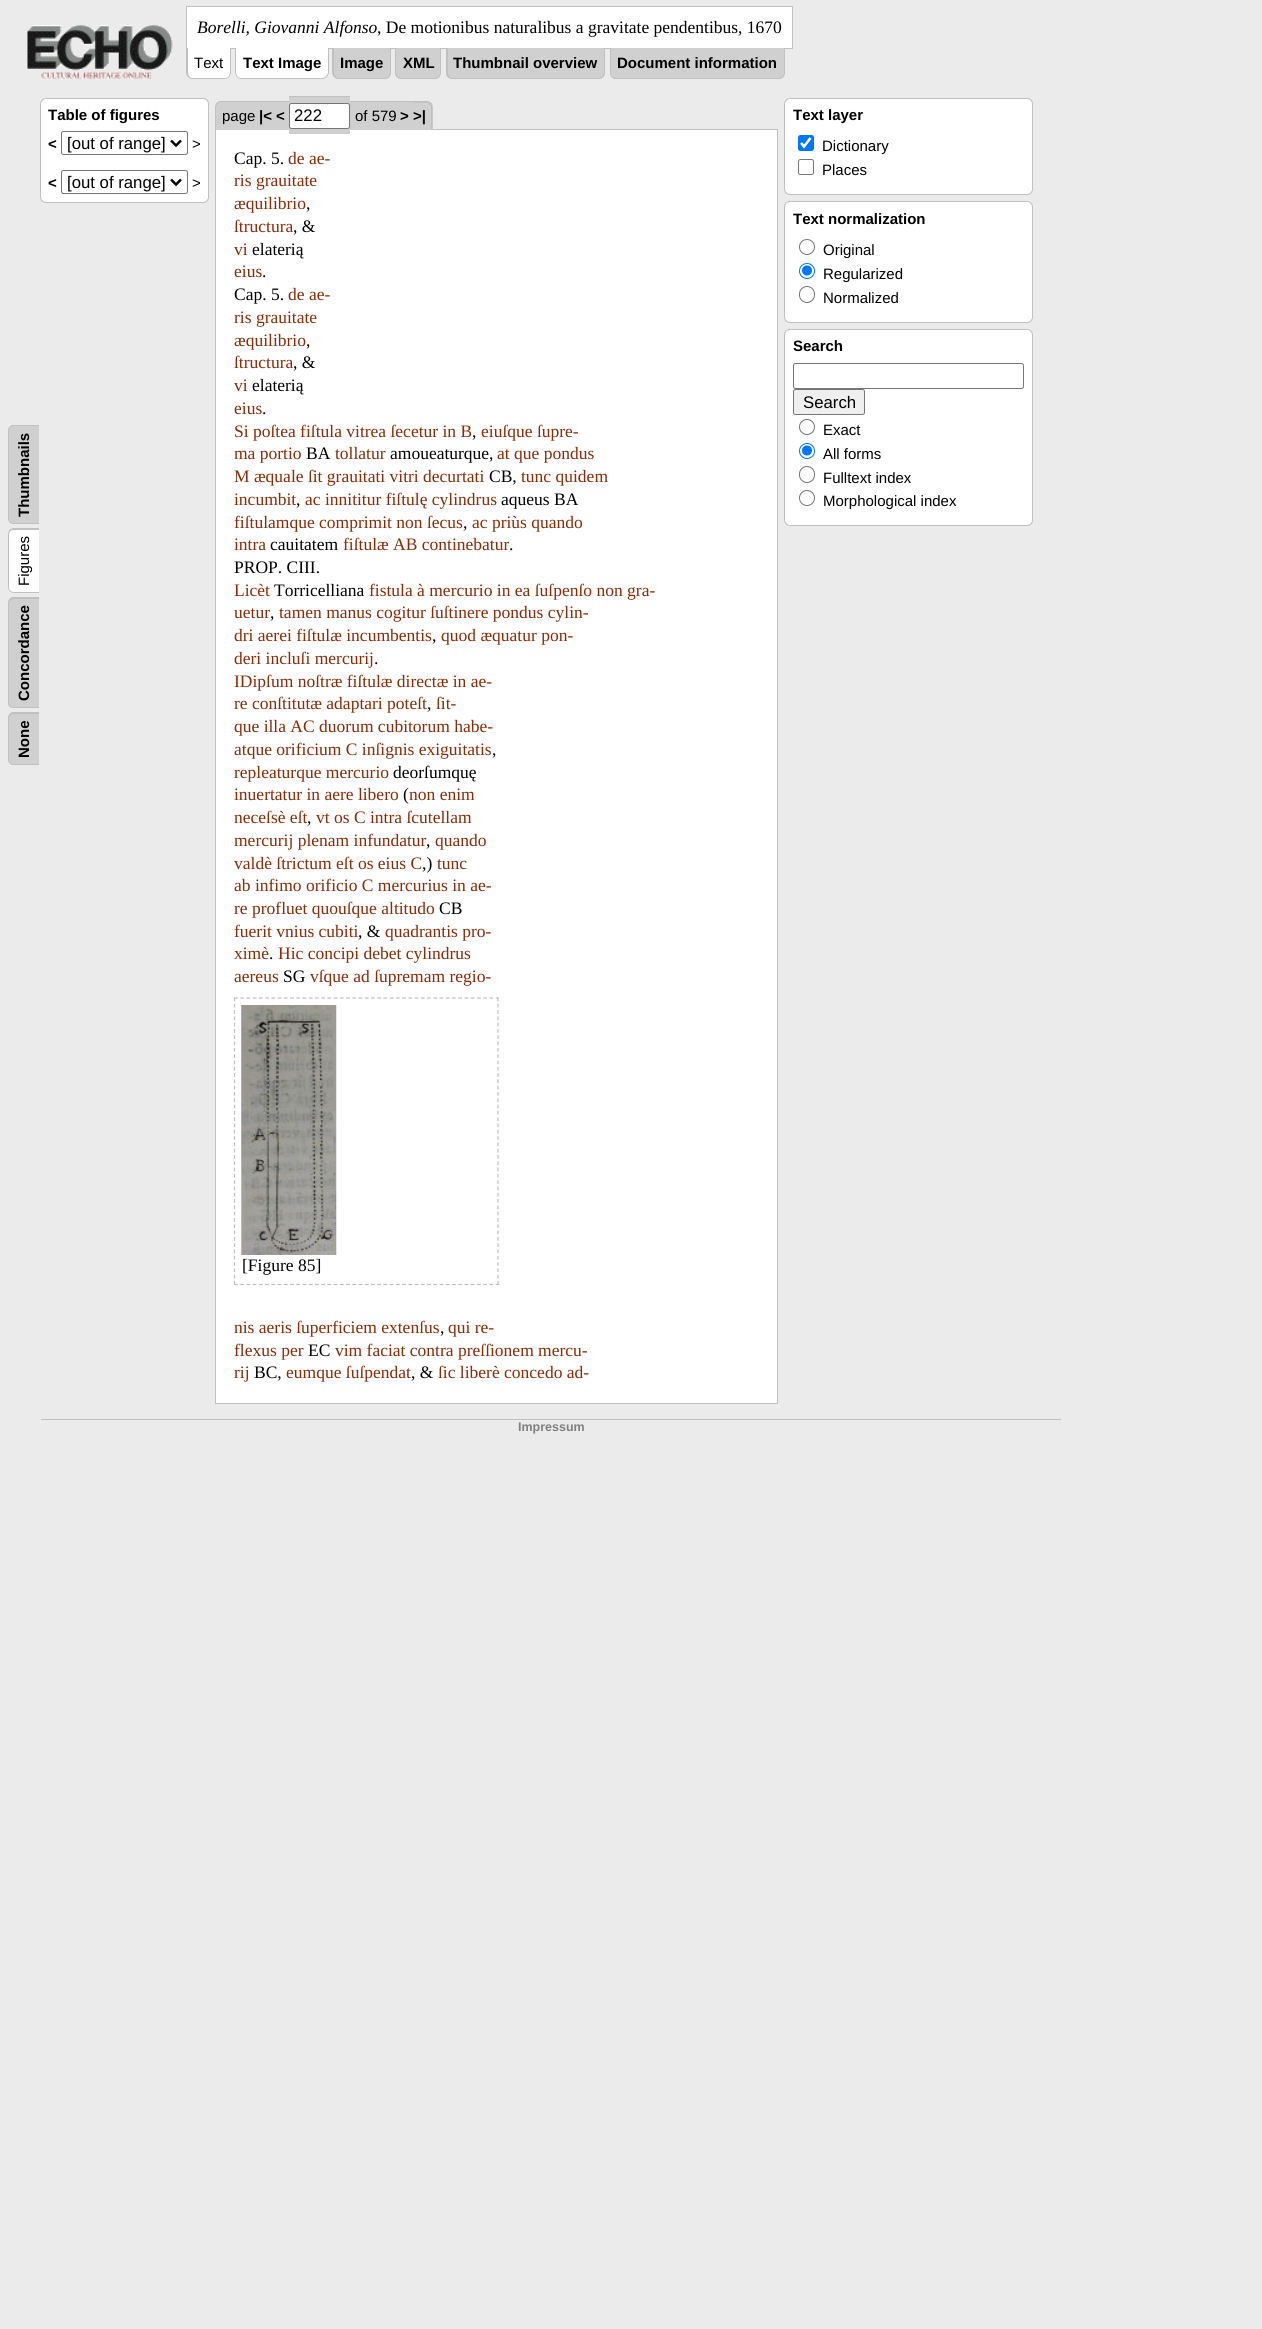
import math
import cairo

surface = cairo.ImageSurface(cairo.FORMAT_RGB24, 1262, 2329)
c = cairo.Context(surface)
options = cairo.FontOptions()
options.set_hint_metrics(cairo.HINT_METRICS_OFF)
options.set_hint_style(cairo.HINT_STYLE_NONE)
c.set_font_options(options)
c.set_miter_limit(4)
def C(code):
 c.set_source_rgb(*(v / 255 for v in bytes.fromhex(code[-6:])))
def F(family, size, italic, bold):
 c.select_font_face(family, cairo.FONT_SLANT_ITALIC if italic else cairo.FONT_SLANT_NORMAL, cairo.FONT_WEIGHT_BOLD if bold else cairo.FONT_WEIGHT_NORMAL)
 c.set_font_size(size)
def T(x, y, s):
 c.move_to(x, y)
 c.show_text(s)
def R(x, y, w, h):
 c.rectangle(x, y, w, h)
 c.fill()
def Q(x, y, w, h, r):
 c.new_sub_path()
 for i, (u, v) in enumerate([(x + w - r, y + h - r), (x + r, y + h - r), (x + r, y + r), (x + w - r, y + r)]):
  c.arc(u, v, r, i * math.pi / 2, (i + 1) * math.pi / 2)
 c.close_path()
def I(path, x, y, w, h):
 c.save()
 c.set_source_surface(cairo.ImageSurface.create_from_png(path), x, y)
 c.rectangle(x, y, w, h)
 c.fill()
 c.restore()
C('ebebeb')
c.paint()
I('1.png',27,25,146,54)
C('ffffff')
c.rectangle(186.5,6.5,606,42)
c.fill_preserve()
C('c0c0c0')
c.set_line_width(1)
c.stroke()
F('Liberation Serif',17.5,1,0)
C('000000')
T(197,33,'Borelli, Giovanni Alfonso')
F('Liberation Serif',17.5,0,0)
T(377,33,', De motionibus naturalibus a gravitate pendentibus, 1670')
C('ffffff')
c.new_path()
c.move_to(186,48)
c.line_to(231,48)
c.line_to(231,73)
c.curve_to(231,76.5,228.5,79,225,79)
c.line_to(192,79)
c.curve_to(188.5,79,186,76.5,186,73)
c.close_path()
c.fill()
C('c0c0c0')
c.set_fill_rule(cairo.FILL_RULE_EVEN_ODD)
c.new_path()
c.move_to(186,48)
c.line_to(231,48)
c.line_to(231,72)
c.curve_to(231,76,228,79,225,79)
c.line_to(192,79)
c.curve_to(189,79,186,76,186,72)
c.close_path()
c.move_to(188,48)
c.line_to(230,48)
c.line_to(230,72)
c.curve_to(230,75,228,78,225,78)
c.line_to(192,78)
c.curve_to(190,78,188,75,188,72)
c.close_path()
c.fill()
F('Liberation Sans',15,0,0)
C('000000')
T(194,68,'Text')
C('ffffff')
c.new_path()
c.move_to(235,48)
c.line_to(329,48)
c.line_to(329,73)
c.curve_to(329,76.5,326.5,79,323,79)
c.line_to(241,79)
c.curve_to(237.5,79,235,76.5,235,73)
c.close_path()
c.fill()
C('c0c0c0')
c.new_path()
c.move_to(235,48)
c.line_to(329,48)
c.line_to(329,72)
c.curve_to(329,76,326,79,322,79)
c.line_to(241,79)
c.curve_to(238,79,235,76,235,72)
c.close_path()
c.move_to(236,48)
c.line_to(328,48)
c.line_to(328,72)
c.curve_to(328,75,325,78,322,78)
c.line_to(241,78)
c.curve_to(238,78,236,75,236,72)
c.close_path()
c.fill()
F('Liberation Sans',15,0,1)
C('000000')
T(243,68,'Text Image')
C('d0d0d0')
c.new_path()
c.move_to(333,48)
c.line_to(391,48)
c.line_to(391,73)
c.curve_to(391,76.5,388.5,79,385,79)
c.line_to(339,79)
c.curve_to(335.5,79,333,76.5,333,73)
c.close_path()
c.fill()
C('c0c0c0')
c.new_path()
c.move_to(332,48)
c.line_to(391,48)
c.line_to(391,72)
c.curve_to(391,76,388,79,385,79)
c.line_to(339,79)
c.curve_to(335,79,332,76,332,72)
c.close_path()
c.move_to(334,48)
c.line_to(390,48)
c.line_to(390,72)
c.curve_to(390,75,388,78,385,78)
c.line_to(339,78)
c.curve_to(336,78,334,75,334,72)
c.close_path()
c.fill()
C('000000')
T(340,68,'Image')
C('d0d0d0')
c.new_path()
c.move_to(395,48)
c.line_to(441,48)
c.line_to(441,73)
c.curve_to(441,76.5,438.5,79,435,79)
c.line_to(401,79)
c.curve_to(397.5,79,395,76.5,395,73)
c.close_path()
c.fill()
C('c0c0c0')
c.new_path()
c.move_to(395,48)
c.line_to(441,48)
c.line_to(441,72)
c.curve_to(441,76,438,79,435,79)
c.line_to(401,79)
c.curve_to(398,79,395,76,395,72)
c.close_path()
c.move_to(396,48)
c.line_to(440,48)
c.line_to(440,72)
c.curve_to(440,75,438,78,435,78)
c.line_to(401,78)
c.curve_to(398,78,396,75,396,72)
c.close_path()
c.fill()
C('000000')
T(403,68,'XML')
C('d0d0d0')
c.new_path()
c.move_to(446,48)
c.line_to(605,48)
c.line_to(605,73)
c.curve_to(605,76.5,602.5,79,599,79)
c.line_to(452,79)
c.curve_to(448.5,79,446,76.5,446,73)
c.close_path()
c.fill()
C('c0c0c0')
c.new_path()
c.move_to(446,48)
c.line_to(605,48)
c.line_to(605,72)
c.curve_to(605,76,602,79,599,79)
c.line_to(452,79)
c.curve_to(449,79,446,76,446,72)
c.close_path()
c.move_to(448,48)
c.line_to(604,48)
c.line_to(604,72)
c.curve_to(604,75,602,78,599,78)
c.line_to(452,78)
c.curve_to(450,78,448,75,448,72)
c.close_path()
c.fill()
C('000000')
T(453,68,'Thumbnail overview')
C('d0d0d0')
c.new_path()
c.move_to(610,48)
c.line_to(785,48)
c.line_to(785,73)
c.curve_to(785,76.5,782.5,79,779,79)
c.line_to(616,79)
c.curve_to(612.5,79,610,76.5,610,73)
c.close_path()
c.fill()
C('c0c0c0')
c.new_path()
c.move_to(610,48)
c.line_to(785,48)
c.line_to(785,72)
c.curve_to(785,76,782,79,779,79)
c.line_to(616,79)
c.curve_to(613,79,610,76,610,72)
c.close_path()
c.move_to(611,48)
c.line_to(784,48)
c.line_to(784,72)
c.curve_to(784,75,782,78,779,78)
c.line_to(616,78)
c.curve_to(613,78,611,75,611,72)
c.close_path()
c.fill()
C('000000')
T(617,68,'Document information')
C('ffffff')
Q(40.5,98.5,168,104,5.5)
c.fill_preserve()
C('c0c0c0')
c.stroke()
C('000000')
T(48,120,'Table of figures')
T(48,149,'<')
Q(61.5,131.5,126,23,2)
C('767676')
c.stroke()
c.new_path()
c.move_to(171,140.5)
c.line_to(176,145.5)
c.line_to(181,140.5)
C('000000')
c.set_line_width(2.5)
c.stroke()
F('Liberation Sans',16.75,0,0)
T(67,149,'[out of range]')
F('Liberation Sans',15,0,0)
T(192,149,'>')
F('Liberation Sans',15,0,1)
T(48,188,'<')
Q(61.5,170.5,126,23,2)
C('767676')
c.set_line_width(1)
c.stroke()
c.new_path()
c.move_to(171,179.5)
c.line_to(176,184.5)
c.line_to(181,179.5)
C('000000')
c.set_line_width(2.5)
c.stroke()
F('Liberation Sans',16.75,0,0)
T(67,188,'[out of range]')
F('Liberation Sans',15,0,0)
T(192,188,'>')
C('d0d0d0')
c.set_fill_rule(cairo.FILL_RULE_WINDING)
c.new_path()
c.move_to(8,518)
c.line_to(8,431)
c.curve_to(8,428,10,425,14,425)
c.line_to(39,425)
c.line_to(39,524)
c.line_to(14,524)
c.curve_to(10,524,8,521,8,518)
c.close_path()
c.fill()
C('c0c0c0')
c.set_fill_rule(cairo.FILL_RULE_EVEN_ODD)
c.new_path()
c.move_to(8,518)
c.line_to(8,431)
c.curve_to(8,428,10,425,14,425)
c.line_to(39,425)
c.line_to(39,524)
c.line_to(14,524)
c.curve_to(10,524,8,521,8,518)
c.close_path()
c.move_to(9,518)
c.line_to(9,431)
c.curve_to(9,428,11,426,14,426)
c.line_to(39,426)
c.line_to(39,523)
c.line_to(14,523)
c.curve_to(11,523,9,521,9,518)
c.close_path()
c.fill()
F('Liberation Sans',15,0,1)
C('000000')
c.save()
c.translate(29,517)
c.rotate(-90 * math.pi / 180)
T(0,0,'Thumbnails')
c.restore()
C('ffffff')
c.set_fill_rule(cairo.FILL_RULE_WINDING)
c.new_path()
c.move_to(8,587)
c.line_to(8,535)
c.curve_to(8,531,10,528,14,528)
c.line_to(39,528)
c.line_to(39,593)
c.line_to(14,593)
c.curve_to(10,593,8,590,8,587)
c.close_path()
c.fill()
C('c0c0c0')
c.set_fill_rule(cairo.FILL_RULE_EVEN_ODD)
c.new_path()
c.move_to(8,587)
c.line_to(8,535)
c.curve_to(8,531,10,528,14,528)
c.line_to(39,528)
c.line_to(39,593)
c.line_to(14,593)
c.curve_to(10,593,8,590,8,587)
c.close_path()
c.move_to(9,587)
c.line_to(9,535)
c.curve_to(9,532,11,530,14,530)
c.line_to(39,530)
c.line_to(39,592)
c.line_to(14,592)
c.curve_to(11,592,9,590,9,587)
c.close_path()
c.fill()
F('Liberation Sans',15,0,0)
C('000000')
c.save()
c.translate(29,586)
c.rotate(-90 * math.pi / 180)
T(0,0,'Figures')
c.restore()
C('d0d0d0')
c.set_fill_rule(cairo.FILL_RULE_WINDING)
c.new_path()
c.move_to(8,702)
c.line_to(8,604)
c.curve_to(8,600,10,597,14,597)
c.line_to(39,597)
c.line_to(39,708)
c.line_to(14,708)
c.curve_to(10,708,8,706,8,702)
c.close_path()
c.fill()
C('c0c0c0')
c.set_fill_rule(cairo.FILL_RULE_EVEN_ODD)
c.new_path()
c.move_to(8,702)
c.line_to(8,604)
c.curve_to(8,600,10,597,14,597)
c.line_to(39,597)
c.line_to(39,708)
c.line_to(14,708)
c.curve_to(10,708,8,706,8,702)
c.close_path()
c.move_to(9,702)
c.line_to(9,604)
c.curve_to(9,601,11,599,14,599)
c.line_to(39,599)
c.line_to(39,707)
c.line_to(14,707)
c.curve_to(11,707,9,705,9,702)
c.close_path()
c.fill()
F('Liberation Sans',15,0,1)
C('000000')
c.save()
c.translate(29,701)
c.rotate(-90 * math.pi / 180)
T(0,0,'Concordance')
c.restore()
C('d0d0d0')
c.set_fill_rule(cairo.FILL_RULE_WINDING)
c.new_path()
c.move_to(8,759)
c.line_to(8,719)
c.curve_to(8,715,10,712,14,712)
c.line_to(39,712)
c.line_to(39,765)
c.line_to(14,765)
c.curve_to(10,765,8,762,8,759)
c.close_path()
c.fill()
C('c0c0c0')
c.set_fill_rule(cairo.FILL_RULE_EVEN_ODD)
c.new_path()
c.move_to(8,759)
c.line_to(8,719)
c.curve_to(8,715,10,712,14,712)
c.line_to(39,712)
c.line_to(39,765)
c.line_to(14,765)
c.curve_to(10,765,8,762,8,759)
c.close_path()
c.move_to(9,759)
c.line_to(9,719)
c.curve_to(9,716,11,714,14,714)
c.line_to(39,714)
c.line_to(39,764)
c.line_to(14,764)
c.curve_to(11,764,9,762,9,759)
c.close_path()
c.fill()
C('000000')
c.save()
c.translate(29,758)
c.rotate(-90 * math.pi / 180)
T(0,0,'None')
c.restore()
C('ffffff')
c.rectangle(215.5,129.5,562,1274)
c.fill_preserve()
C('c0c0c0')
c.set_line_width(1)
c.stroke()
C('d0d0d0')
c.new_path()
c.move_to(221,101)
c.line_to(259,101)
c.line_to(259,130)
c.line_to(215,130)
c.line_to(215,107)
c.curve_to(215,103.5,217.5,101,221,101)
c.close_path()
c.fill()
C('c0c0c0')
c.new_path()
c.move_to(221,101)
c.line_to(259,101)
c.line_to(259,130)
c.line_to(215,130)
c.line_to(215,108)
c.curve_to(215,104,218,101,221,101)
c.close_path()
c.move_to(221,102)
c.line_to(259,102)
c.line_to(259,130)
c.line_to(216,130)
c.line_to(216,108)
c.curve_to(216,105,218,102,221,102)
c.close_path()
c.fill()
C('d0d0d0')
R(259,102,14,28)
C('c0c0c0')
R(259,101,14,1)
C('d0d0d0')
R(273,101,3,29)
C('c0c0c0')
R(273,101,12,1)
C('d0d0d0')
R(276,102,9,28)
R(285,101,4,29)
C('c0c0c0')
R(285,101,4,1)
C('d0d0d0')
R(289,97,61,37)
C('c0c0c0')
R(289,96,61,1)
C('d0d0d0')
R(350,101,5,29)
C('c0c0c0')
R(350,101,59,1)
C('d0d0d0')
R(355,102,54,28)
R(409,101,5,29)
C('c0c0c0')
R(409,101,5,1)
C('d0d0d0')
c.new_path()
c.move_to(414,101)
c.line_to(427,101)
c.curve_to(430.5,101,433,103.5,433,107)
c.line_to(433,130)
c.line_to(414,130)
c.close_path()
c.fill()
C('c0c0c0')
c.new_path()
c.move_to(414,101)
c.line_to(426,101)
c.curve_to(429.5,101,432.5,104,432.5,107.5)
c.line_to(432.5,130)
c.line_to(414,130)
c.close_path()
c.move_to(414,102.5)
c.line_to(426,102.5)
c.curve_to(429,102.5,431,104.5,431,107.5)
c.line_to(431,130)
c.line_to(414,130)
c.close_path()
c.fill()
F('Liberation Sans',15,0,0)
C('000000')
T(222,121,'page')
F('Liberation Sans',15,0,1)
T(259,121,'|< <')
C('ffffff')
Q(289.5,103.5,60,25,2)
c.fill_preserve()
C('767676')
c.stroke()
F('Liberation Sans',16.75,0,0)
C('000000')
T(294,121,'222')
F('Liberation Sans',15,0,0)
T(355,121,'of 579')
F('Liberation Sans',15,0,1)
T(400,121,'> >|')
F('Liberation Serif',17.5,0,0)
T(234,164,'Cap. 5.')
C('892b06')
T(288,164,'de ae-')
T(234,186,'ris grauitate')
T(234,209,'æquilibrio')
C('000000')
T(306,209,',')
C('892b06')
T(234,232,'ſtructura')
C('000000')
T(293,232,', &')
C('892b06')
T(234,255,'vi')
C('000000')
T(252,255,'elaterią')
C('892b06')
T(234,277,'eius')
C('000000')
T(262,277,'.')
T(234,300,'Cap. 5.')
C('892b06')
T(288,300,'de ae-')
T(234,323,'ris grauitate')
T(234,346,'æquilibrio')
C('000000')
T(306,346,',')
C('892b06')
T(234,368,'ſtructura')
C('000000')
T(293,368,', &')
C('892b06')
T(234,391,'vi')
C('000000')
T(252,391,'elaterią')
C('892b06')
T(234,414,'eius')
C('000000')
T(262,414,'.')
C('892b06')
T(234,437,'Si poſtea fiſtula vitrea ſecetur in B')
C('000000')
T(472,437,',')
C('892b06')
T(481,437,'eiuſque ſupre-')
T(234,459,'ma portio')
C('000000')
T(306,459,'BA')
C('892b06')
T(335,459,'tollatur')
C('000000')
T(390,459,'amoueaturque,')
C('892b06')
T(497,459,'at que pondus')
T(234,482,'M æquale ſit grauitati vitri decurtati')
C('000000')
T(489,482,'CB,')
C('892b06')
T(521,482,'tunc quidem')
T(234,505,'incumbit')
C('000000')
T(296,505,',')
C('892b06')
T(305,505,'ac innititur fiſtulę cylindrus')
C('000000')
T(501,505,'aqueus BA')
C('892b06')
T(234,528,'fiſtulamque comprimit non ſecus')
C('000000')
T(463,528,',')
C('892b06')
T(472,528,'ac priùs quando')
T(234,550,'intra')
C('000000')
T(270,550,'cauitatem')
C('892b06')
T(343,550,'fiſtulæ AB continebatur')
C('000000')
T(509,550,'.')
T(234,573,'PROP. CIII.')
C('892b06')
T(234,596,'Licèt')
C('000000')
T(274,596,'Torricelliana')
C('892b06')
T(369,596,'fistula à mercurio in ea ſuſpenſo non gra-')
T(234,618,'uetur')
C('000000')
T(270,618,',')
C('892b06')
T(279,618,'tamen manus cogitur ſuſtinere pondus cylin-')
T(234,641,'dri aerei fiſtulæ incumbentis')
C('000000')
T(432,641,',')
C('892b06')
T(441,641,'quod æquatur pon-')
T(234,664,'deri incluſi mercurij')
C('000000')
T(374,664,'.')
C('892b06')
T(234,687,'IDipſum noſtræ fiſtulæ directæ in ae-')
T(234,709,'re conſtitutæ adaptari poteſt')
C('000000')
T(427,709,',')
C('892b06')
T(436,709,'ſit-')
T(234,732,'que illa AC duorum cubitorum habe-')
T(234,755,'atque orificium C inſignis exiguitatis')
C('000000')
T(492,755,',')
C('892b06')
T(234,778,'repleaturque mercurio')
C('000000')
T(393,778,'deorſumquę')
C('892b06')
T(234,800,'inuertatur in aere libero')
C('000000')
T(403,800,'(')
C('892b06')
T(409,800,'non enim')
T(234,823,'neceſsè eſt')
C('000000')
T(307,823,',')
C('892b06')
T(316,823,'vt os C intra ſcutellam')
T(234,846,'mercurij plenam infundatur')
C('000000')
T(426,846,',')
C('892b06')
T(435,846,'quando')
T(234,869,'valdè ſtrictum eſt os eius C')
C('000000')
T(422,869,',)')
C('892b06')
T(437,869,'tunc')
T(234,891,'ab infimo orificio C mercurius in ae-')
T(234,914,'re profluet quouſque altitudo')
C('000000')
T(439,914,'CB')
C('892b06')
T(234,937,'fuerit vnius cubiti')
C('000000')
T(358,937,', &')
C('892b06')
T(385,937,'quadrantis pro-')
T(278,959,'Hic concipi debet cylindrus')
T(234,982,'aereus')
C('000000')
T(283,982,'SG')
C('892b06')
T(310,982,'vſque ad ſupremam regio-')
c.new_path()
c.move_to(234,998)
c.line_to(499,998)
C('c0c0c0')
c.set_line_width(1.2)
c.set_dash([3.75,2.48])
c.stroke()
c.new_path()
c.move_to(498,997.5)
c.line_to(498,1285)
c.set_dash([3.75,2.55])
c.stroke()
c.new_path()
c.move_to(234,1284.5)
c.line_to(499,1284.5)
c.set_dash([3.75,2.48])
c.stroke()
c.new_path()
c.move_to(234.5,997.5)
c.line_to(234.5,1285)
c.set_dash([3.75,2.55])
c.stroke()
I('2.png',241,1005,96,250)
C('000000')
T(242,1271,'[Figure 85]')
C('892b06')
T(234,1333,'nis aeris ſuperficiem extenſus')
C('000000')
T(440,1333,',')
C('892b06')
T(448,1333,'qui re-')
T(234,1356,'flexus per')
C('000000')
T(308,1356,'EC')
C('892b06')
T(335,1356,'vim faciat contra preſſionem mercu-')
T(234,1378,'rij')
C('000000')
T(254,1378,'BC,')
C('892b06')
T(286,1378,'eumque ſuſpendat')
C('000000')
T(411,1378,', &')
C('892b06')
T(438,1378,'ſic liberè concedo ad-')
T(234,959,'ximè')
C('000000')
T(269,959,'.')
C('ffffff')
Q(784.5,98.5,248,96,5.5)
c.fill_preserve()
C('c0c0c0')
c.set_line_width(1)
c.set_dash([])
c.stroke()
F('Liberation Sans',15,0,1)
C('000000')
T(793,120,'Text layer')
C('0075ff')
Q(798,135,16,16,2.5)
c.fill()
c.new_path()
c.move_to(801,143)
c.line_to(804,146.5)
c.line_to(810.5,138)
C('ffffff')
c.set_line_width(2.6)
c.stroke()
F('Liberation Sans',15,0,0)
C('000000')
T(822,151,'Dictionary')
Q(798.5,159.5,15,15,2)
C('767676')
c.set_line_width(1)
c.stroke()
C('000000')
T(822,175,'Places')
C('ffffff')
Q(784.5,201.5,248,121,5.5)
c.fill_preserve()
C('c0c0c0')
c.stroke()
F('Liberation Sans',15,0,1)
C('000000')
T(793,224,'Text normalization')
c.new_path()
c.arc(807,247,7.5,0,2 * math.pi)
C('767676')
c.stroke()
F('Liberation Sans',15,0,0)
C('000000')
T(823,255,'Original')
c.new_path()
c.arc(807,271,7.5,0,2 * math.pi)
C('0075ff')
c.stroke()
c.arc(807,270.5,5,0,2 * math.pi)
c.fill()
C('000000')
T(823,279,'Regularized')
Q(799.5,286.5,15,16,7.5)
C('767676')
c.stroke()
C('000000')
T(823,303,'Normalized')
C('ffffff')
Q(784.5,329.5,248,196,5.5)
c.fill_preserve()
C('c0c0c0')
c.stroke()
F('Liberation Sans',15,0,1)
C('000000')
T(793,351,'Search')
Q(793.5,363.5,230,25,2)
C('767676')
c.stroke()
C('efefef')
Q(793.5,389.5,71,25,2)
c.fill_preserve()
C('767676')
c.stroke()
F('Liberation Sans',16.75,0,0)
C('000000')
T(803,408,'Search')
c.new_path()
c.arc(807,427,7.5,0,2 * math.pi)
C('767676')
c.stroke()
F('Liberation Sans',15,0,0)
C('000000')
T(823,435,'Exact')
c.new_path()
c.arc(807,451,7.5,0,2 * math.pi)
C('0075ff')
c.stroke()
c.arc(807,450.5,5,0,2 * math.pi)
c.fill()
C('000000')
T(823,459,'All forms')
Q(799.5,466.5,15,16,7.5)
C('767676')
c.stroke()
C('000000')
T(823,483,'Fulltext index')
c.new_path()
c.arc(807,498,7.5,0,2 * math.pi)
C('767676')
c.stroke()
C('000000')
T(823,506,'Morphological index')
C('c0c0c0')
R(41,1419,1020,1)
F('Liberation Sans',12.5,0,1)
C('808080')
T(518,1431,'Impressum')
surface.write_to_png('o.png')
